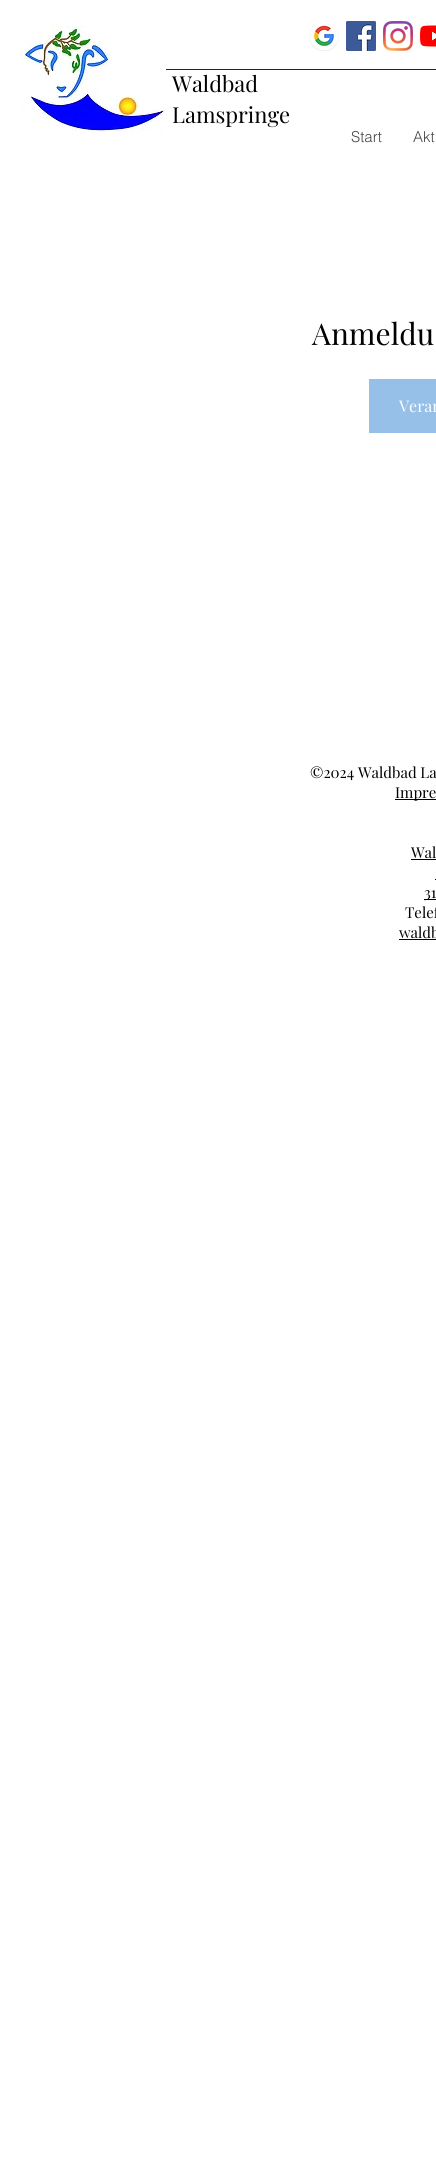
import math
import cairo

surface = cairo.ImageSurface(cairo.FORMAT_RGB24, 436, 2184)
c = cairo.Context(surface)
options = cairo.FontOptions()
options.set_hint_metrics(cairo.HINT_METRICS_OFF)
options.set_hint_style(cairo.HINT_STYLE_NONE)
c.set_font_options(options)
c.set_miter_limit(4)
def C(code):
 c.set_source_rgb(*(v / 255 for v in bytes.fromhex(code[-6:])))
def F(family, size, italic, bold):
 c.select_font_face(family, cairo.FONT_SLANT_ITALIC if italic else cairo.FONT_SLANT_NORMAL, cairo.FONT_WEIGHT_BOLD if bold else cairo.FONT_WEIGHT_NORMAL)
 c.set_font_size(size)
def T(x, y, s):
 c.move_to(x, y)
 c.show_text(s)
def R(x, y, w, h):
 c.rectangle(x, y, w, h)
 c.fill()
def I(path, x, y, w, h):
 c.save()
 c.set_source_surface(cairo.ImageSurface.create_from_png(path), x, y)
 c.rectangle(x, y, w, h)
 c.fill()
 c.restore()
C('ffffff')
c.paint()
C('262626')
R(166,69,270,1)
I('1.png',20,26,146,108)
F('Playfair Display',22,0,0)
C('000000')
T(172,92,'Waldbad')
T(172,123,'Lamspringe')
I('2.png',309,25,30,26)
I('3.png',346,21,30,30)
I('4.png',383,21,30,30)
I('5.png',420,25,16,22)
F('helvetica Light',15,0,0)
C('444444')
T(351,142,'Start')
T(413,142,'Akt')
F('Playfair Display',30,0,0)
C('000000')
T(312,345,'Anmeldu')
C('97c0e8')
R(369,379,67,54)
F('Playfair Display',16,0,0)
C('ffffff')
T(399,412,'Veran')
F('Playfair Display',15,0,0)
C('000000')
T(310,778,'©2024 Waldbad La')
R(395,799,41,1)
T(395,798,'Impre')
T(411,858,'Wal')
R(411,859,25,1)
R(435,879,1,1)
R(424,899,12,1)
T(424,898,'31')
T(405,918,'Telef')
T(399,938,'waldb')
R(399,939,37,1)
surface.write_to_png('o.png')
